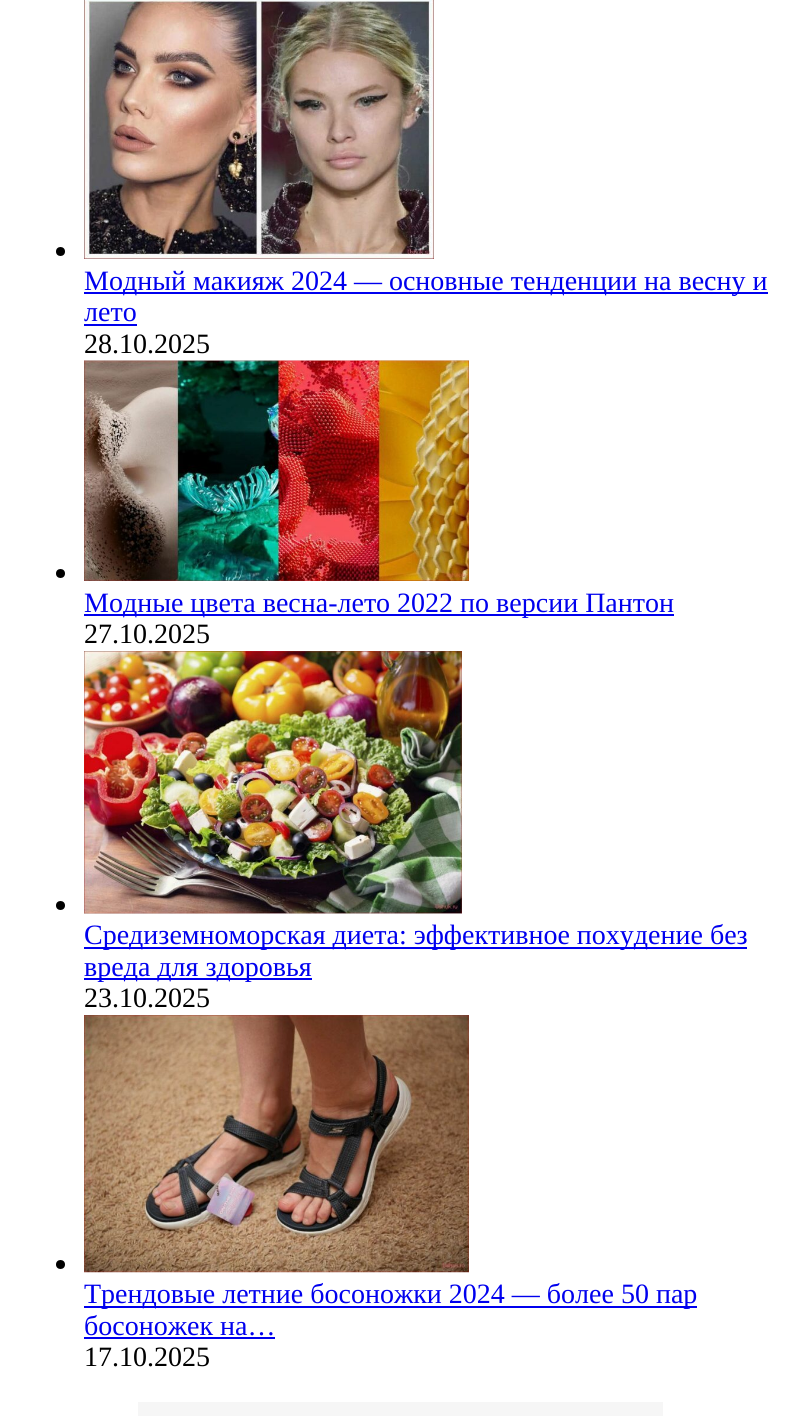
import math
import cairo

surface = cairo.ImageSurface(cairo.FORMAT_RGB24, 800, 1416)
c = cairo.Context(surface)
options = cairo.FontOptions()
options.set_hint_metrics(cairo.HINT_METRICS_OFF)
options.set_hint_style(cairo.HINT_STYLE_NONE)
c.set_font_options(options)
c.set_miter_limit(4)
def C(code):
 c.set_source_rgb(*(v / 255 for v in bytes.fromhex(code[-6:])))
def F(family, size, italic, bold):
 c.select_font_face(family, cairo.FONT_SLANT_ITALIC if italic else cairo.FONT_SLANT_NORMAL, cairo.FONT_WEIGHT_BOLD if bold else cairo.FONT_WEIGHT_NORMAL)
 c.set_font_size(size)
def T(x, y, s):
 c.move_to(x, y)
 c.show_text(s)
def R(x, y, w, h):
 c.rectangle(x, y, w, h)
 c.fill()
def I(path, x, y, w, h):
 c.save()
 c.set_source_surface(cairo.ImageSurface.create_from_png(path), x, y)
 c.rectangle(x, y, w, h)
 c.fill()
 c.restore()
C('ffffff')
c.paint()
C('000000')
c.arc(60.5,251.5,4.5,0,2 * math.pi)
c.fill()
I('1.png',84,0,350,259)
C('0000ee')
R(84,292,684,2)
F('Liberation Serif',28,0,0)
T(84,290,'Модный макияж 2024 — основные тенденции на весну и')
T(84,321,'лето')
R(84,324,53,2)
C('000000')
T(84,353,'28.10.2025')
c.new_path()
c.arc(60.5,573.5,4.5,0,2 * math.pi)
c.fill()
I('2.png',84,360,385,221)
C('0000ee')
R(84,614,590,2)
T(84,612,'Модные цвета весна-лето 2022 по версии Пантон')
C('000000')
T(84,643,'27.10.2025')
c.new_path()
c.arc(60.5,905.5,4.5,0,2 * math.pi)
c.fill()
I('3.png',84,651,378,263)
C('0000ee')
R(84,947,663,2)
T(84,944,'Средиземноморская диета: эффективное похудение без')
R(84,978,228,2)
T(84,976,'вреда для здоровья')
C('000000')
T(84,1007,'23.10.2025')
c.new_path()
c.arc(60.5,1264.5,4.5,0,2 * math.pi)
c.fill()
I('4.png',84,1015,385,258)
C('0000ee')
R(84,1306,613,2)
T(84,1303,'Трендовые летние босоножки 2024 — более 50 пар')
T(84,1335,'босоножек на…')
R(84,1337,191,2)
C('000000')
T(84,1366,'17.10.2025')
C('f6f6f6')
R(138,1402,525,14)
surface.write_to_png('o.png')
